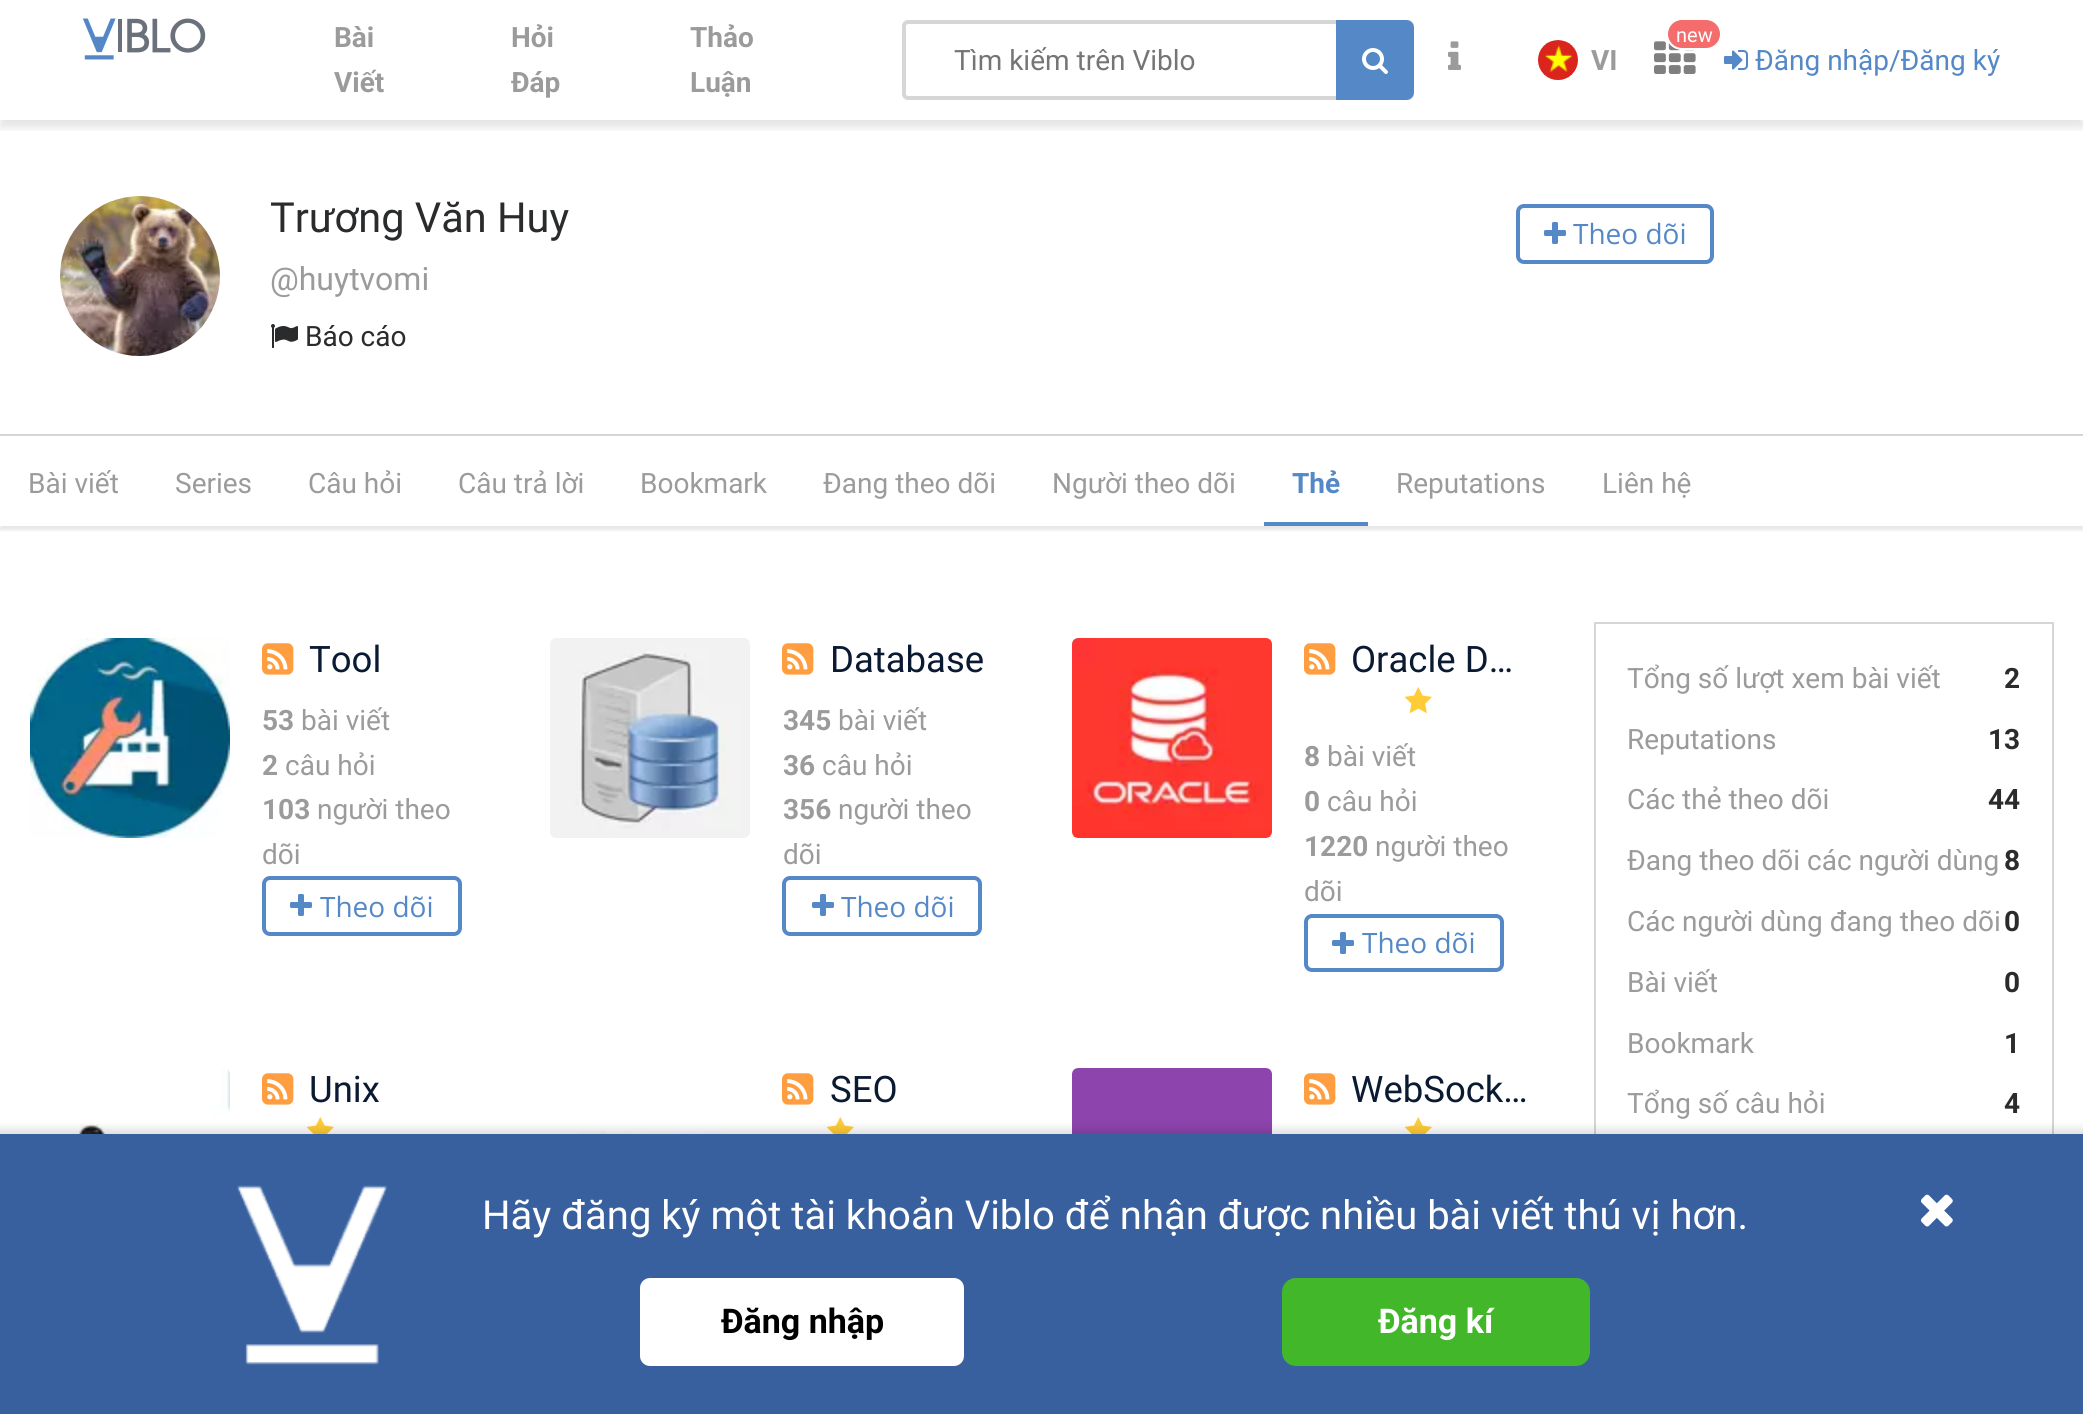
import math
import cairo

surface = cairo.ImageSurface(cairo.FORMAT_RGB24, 2083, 1414)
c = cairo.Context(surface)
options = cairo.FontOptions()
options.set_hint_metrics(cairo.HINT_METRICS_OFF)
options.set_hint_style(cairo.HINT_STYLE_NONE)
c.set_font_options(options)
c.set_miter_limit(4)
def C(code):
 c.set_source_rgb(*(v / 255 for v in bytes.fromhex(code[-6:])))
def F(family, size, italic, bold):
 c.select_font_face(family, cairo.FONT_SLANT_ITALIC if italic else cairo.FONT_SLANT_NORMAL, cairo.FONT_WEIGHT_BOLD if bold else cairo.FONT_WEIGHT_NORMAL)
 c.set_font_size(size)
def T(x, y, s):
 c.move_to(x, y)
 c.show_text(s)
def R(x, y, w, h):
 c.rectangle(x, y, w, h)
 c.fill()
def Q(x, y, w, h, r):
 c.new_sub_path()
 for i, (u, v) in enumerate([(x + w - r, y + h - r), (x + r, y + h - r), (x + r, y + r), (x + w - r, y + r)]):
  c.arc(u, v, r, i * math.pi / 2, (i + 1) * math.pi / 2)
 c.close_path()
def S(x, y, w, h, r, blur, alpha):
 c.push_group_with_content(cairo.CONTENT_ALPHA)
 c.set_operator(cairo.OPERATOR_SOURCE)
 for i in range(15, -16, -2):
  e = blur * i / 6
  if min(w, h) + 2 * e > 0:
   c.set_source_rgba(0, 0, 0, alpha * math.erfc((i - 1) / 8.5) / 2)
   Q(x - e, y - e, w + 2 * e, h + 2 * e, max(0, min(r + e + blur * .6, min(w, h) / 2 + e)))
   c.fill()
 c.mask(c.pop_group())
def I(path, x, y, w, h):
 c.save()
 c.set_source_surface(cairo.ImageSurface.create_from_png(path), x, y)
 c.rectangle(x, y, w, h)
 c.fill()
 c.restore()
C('ffffff')
c.paint()
c.save()
c.rectangle(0,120,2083,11)
c.clip()
C('000000')
S(0,8,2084,120,0,4,.1)
c.restore()
I('1.png',82,18,124,42)
F('Roboto',28,0,1)
C('9b9b9b')
T(334,47,'Bài')
T(334,92,'Viết')
T(511,47,'Hỏi')
T(511,92,'Đáp')
T(690,47,'Thảo')
T(690,92,'Luận')
Q(904,22,508,76,4)
C('d6d6d7')
c.set_line_width(4)
c.stroke()
F('Roboto',28,0,0)
C('757575')
T(954,70,'Tìm kiếm trên Viblo')
C('5488c7')
c.new_path()
c.move_to(1337,21)
c.line_to(1406,21)
c.curve_to(1410,21,1413,24,1413,28)
c.line_to(1413,92)
c.curve_to(1413,96,1410,99,1406,99)
c.line_to(1337,99)
c.close_path()
c.fill_preserve()
c.set_line_width(2)
c.stroke()
I('2.png',1362,48,26,26)
I('3.png',1448,41,13,29)
I('4.png',1654,41,42,33)
C('f56c6c')
Q(1667,19,54,30,15)
c.fill_preserve()
C('ffffff')
c.stroke()
F('Roboto',20,0,0)
T(1676,42,'new')
I('5.png',1538,40,40,40)
F('Roboto',28,0,1)
C('9b9b9b')
T(1591,70,'VI')
I('6.png',1724,50,24,20)
F('Roboto',28,0,0)
C('5488c7')
T(1755,70,'Đăng nhập/Đăng ký')
I('7.png',60,196,160,160)
F('Roboto',41.5,0,0)
C('292b2c')
T(270,232,'Trương Văn Huy')
F('Roboto',32,0,0)
C('9b9b9b')
T(270,290,'@huytvomi')
I('8.png',271,324,27,24)
F('Roboto',28,0,0)
C('292b2c')
T(305,346,'Báo cáo')
Q(1518,206,194,56,6)
C('5488c7')
c.set_line_width(4)
c.stroke()
I('9.png',1544,222,22,22)
F('Open Sans',28,0,0)
T(1573,244,'Theo dõi')
c.save()
c.rectangle(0,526,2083,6)
c.clip()
C('000000')
S(0,438,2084,92,0,2,.1)
c.restore()
C('d6d6d7')
R(0,434,2083,2)
F('Roboto',28,0,0)
C('9b9b9b')
T(28,493,'Bài viết')
T(175,493,'Series')
T(308,493,'Câu hỏi')
T(458,493,'Câu trả lời')
T(640,493,'Bookmark')
T(823,493,'Đang theo dõi')
T(1052,493,'Người theo dõi')
C('5488c7')
R(1264,522,104,4)
F('Roboto',28,0,1)
T(1292,493,'Thẻ')
F('Roboto',28,0,0)
C('9b9b9b')
T(1396,493,'Reputations')
T(1602,493,'Liên hệ')
I('10.png',30,638,200,200)
I('11.png',262,643,32,32)
F('Roboto',36.5,0,0)
C('0b1a33')
T(309,672,'Tool')
F('Roboto',28,0,1)
C('9b9b9b')
T(262,730,'53')
F('Roboto',28,0,0)
T(301,730,'bài viết')
F('Roboto',28,0,1)
T(262,775,'2')
F('Roboto',28,0,0)
T(285,775,'câu hỏi')
F('Roboto',28,0,1)
T(262,819,'103')
F('Roboto',28,0,0)
T(317,819,'người theo')
T(262,864,'dõi')
Q(264,878,196,56,6)
C('5488c7')
c.stroke()
I('9.png',290,894,22,22)
F('Open Sans',28,0,0)
T(320,917,'Theo dõi')
I('12.png',550,638,200,200)
I('11.png',782,643,32,32)
F('Roboto',36.5,0,0)
C('0b1a33')
T(830,672,'Database')
F('Roboto',28,0,1)
C('9b9b9b')
T(783,730,'345')
F('Roboto',28,0,0)
T(838,730,'bài viết')
F('Roboto',28,0,1)
T(783,775,'36')
F('Roboto',28,0,0)
T(822,775,'câu hỏi')
F('Roboto',28,0,1)
T(783,819,'356')
F('Roboto',28,0,0)
T(838,819,'người theo')
T(783,864,'dõi')
Q(784,878,196,56,6)
C('5488c7')
c.stroke()
I('9.png',812,894,22,22)
F('Open Sans',28,0,0)
T(841,917,'Theo dõi')
I('13.png',1072,638,200,200)
I('11.png',1304,643,32,32)
F('Roboto',36.5,0,0)
C('0b1a33')
T(1351,672,'Oracle D…')
I('14.png',1404,687,28,26)
F('Roboto',28,0,1)
C('9b9b9b')
T(1304,766,'8')
F('Roboto',28,0,0)
T(1327,766,'bài viết')
F('Roboto',28,0,1)
T(1304,811,'0')
F('Roboto',28,0,0)
T(1327,811,'câu hỏi')
F('Roboto',28,0,1)
T(1304,856,'1220')
F('Roboto',28,0,0)
T(1375,856,'người theo')
T(1304,901,'dõi')
Q(1306,916,196,54,6)
C('5488c7')
c.stroke()
I('9.png',1332,932,22,22)
F('Open Sans',28,0,0)
T(1362,953,'Theo dõi')
I('15.png',51,1069,179,65)
I('11.png',262,1073,32,32)
F('Roboto',36.5,0,0)
C('0b1a33')
T(309,1102,'Unix')
I('16.png',306,1117,28,17)
I('11.png',782,1073,32,32)
T(830,1102,'SEO')
I('16.png',826,1117,28,17)
I('17.png',577,1131,150,3)
I('18.png',1072,1068,200,66)
I('11.png',1304,1073,32,32)
T(1351,1102,'WebSock…')
I('16.png',1404,1117,28,17)
c.rectangle(1595,623,458,612)
C('d6d6d7')
c.set_line_width(2)
c.stroke()
F('Roboto',28,0,0)
C('9b9b9b')
T(1627,688,'Tổng số lượt xem bài viết')
F('Roboto',28,0,1)
C('292b2c')
T(2004,688,'2')
F('Roboto',28,0,0)
C('9b9b9b')
T(1627,749,'Reputations')
F('Roboto',28,0,1)
C('292b2c')
T(1988,749,'13')
F('Roboto',28,0,0)
C('9b9b9b')
T(1627,809,'Các thẻ theo dõi')
F('Roboto',28,0,1)
C('292b2c')
T(1988,809,'44')
F('Roboto',28,0,0)
C('9b9b9b')
T(1627,870,'Đang theo dõi các người dùng')
F('Roboto',28,0,1)
C('292b2c')
T(2004,870,'8')
F('Roboto',28,0,0)
C('9b9b9b')
T(1627,931,'Các người dùng đang theo dõi')
F('Roboto',28,0,1)
C('292b2c')
T(2004,931,'0')
F('Roboto',28,0,0)
C('9b9b9b')
T(1627,992,'Bài viết')
F('Roboto',28,0,1)
C('292b2c')
T(2004,992,'0')
F('Roboto',28,0,0)
C('9b9b9b')
T(1627,1053,'Bookmark')
F('Roboto',28,0,1)
C('292b2c')
T(2004,1053,'1')
F('Roboto',28,0,0)
C('9b9b9b')
T(1627,1113,'Tổng số câu hỏi')
F('Roboto',28,0,1)
C('292b2c')
T(2004,1113,'4')
C('000000')
S(-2,1130,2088,284,0,5,.15)
C('39609e')
R(0,1134,2083,280)
I('19.png',237,1185,151,180)
F('Roboto',40,0,0)
C('ffffff')
T(482,1229,'Hãy đăng ký một tài khoản Viblo để nhận được nhiều bài viết thú vị hơn.')
Q(640,1278,324,88,10)
c.fill()
F('Roboto',34,0,1)
C('000000')
T(721,1333,'Đăng nhập')
C('42b72a')
Q(1282,1278,308,88,14)
c.fill()
C('ffffff')
T(1378,1333,'Đăng kí')
I('20.png',1921,1194,32,33)
surface.write_to_png('o.png')
